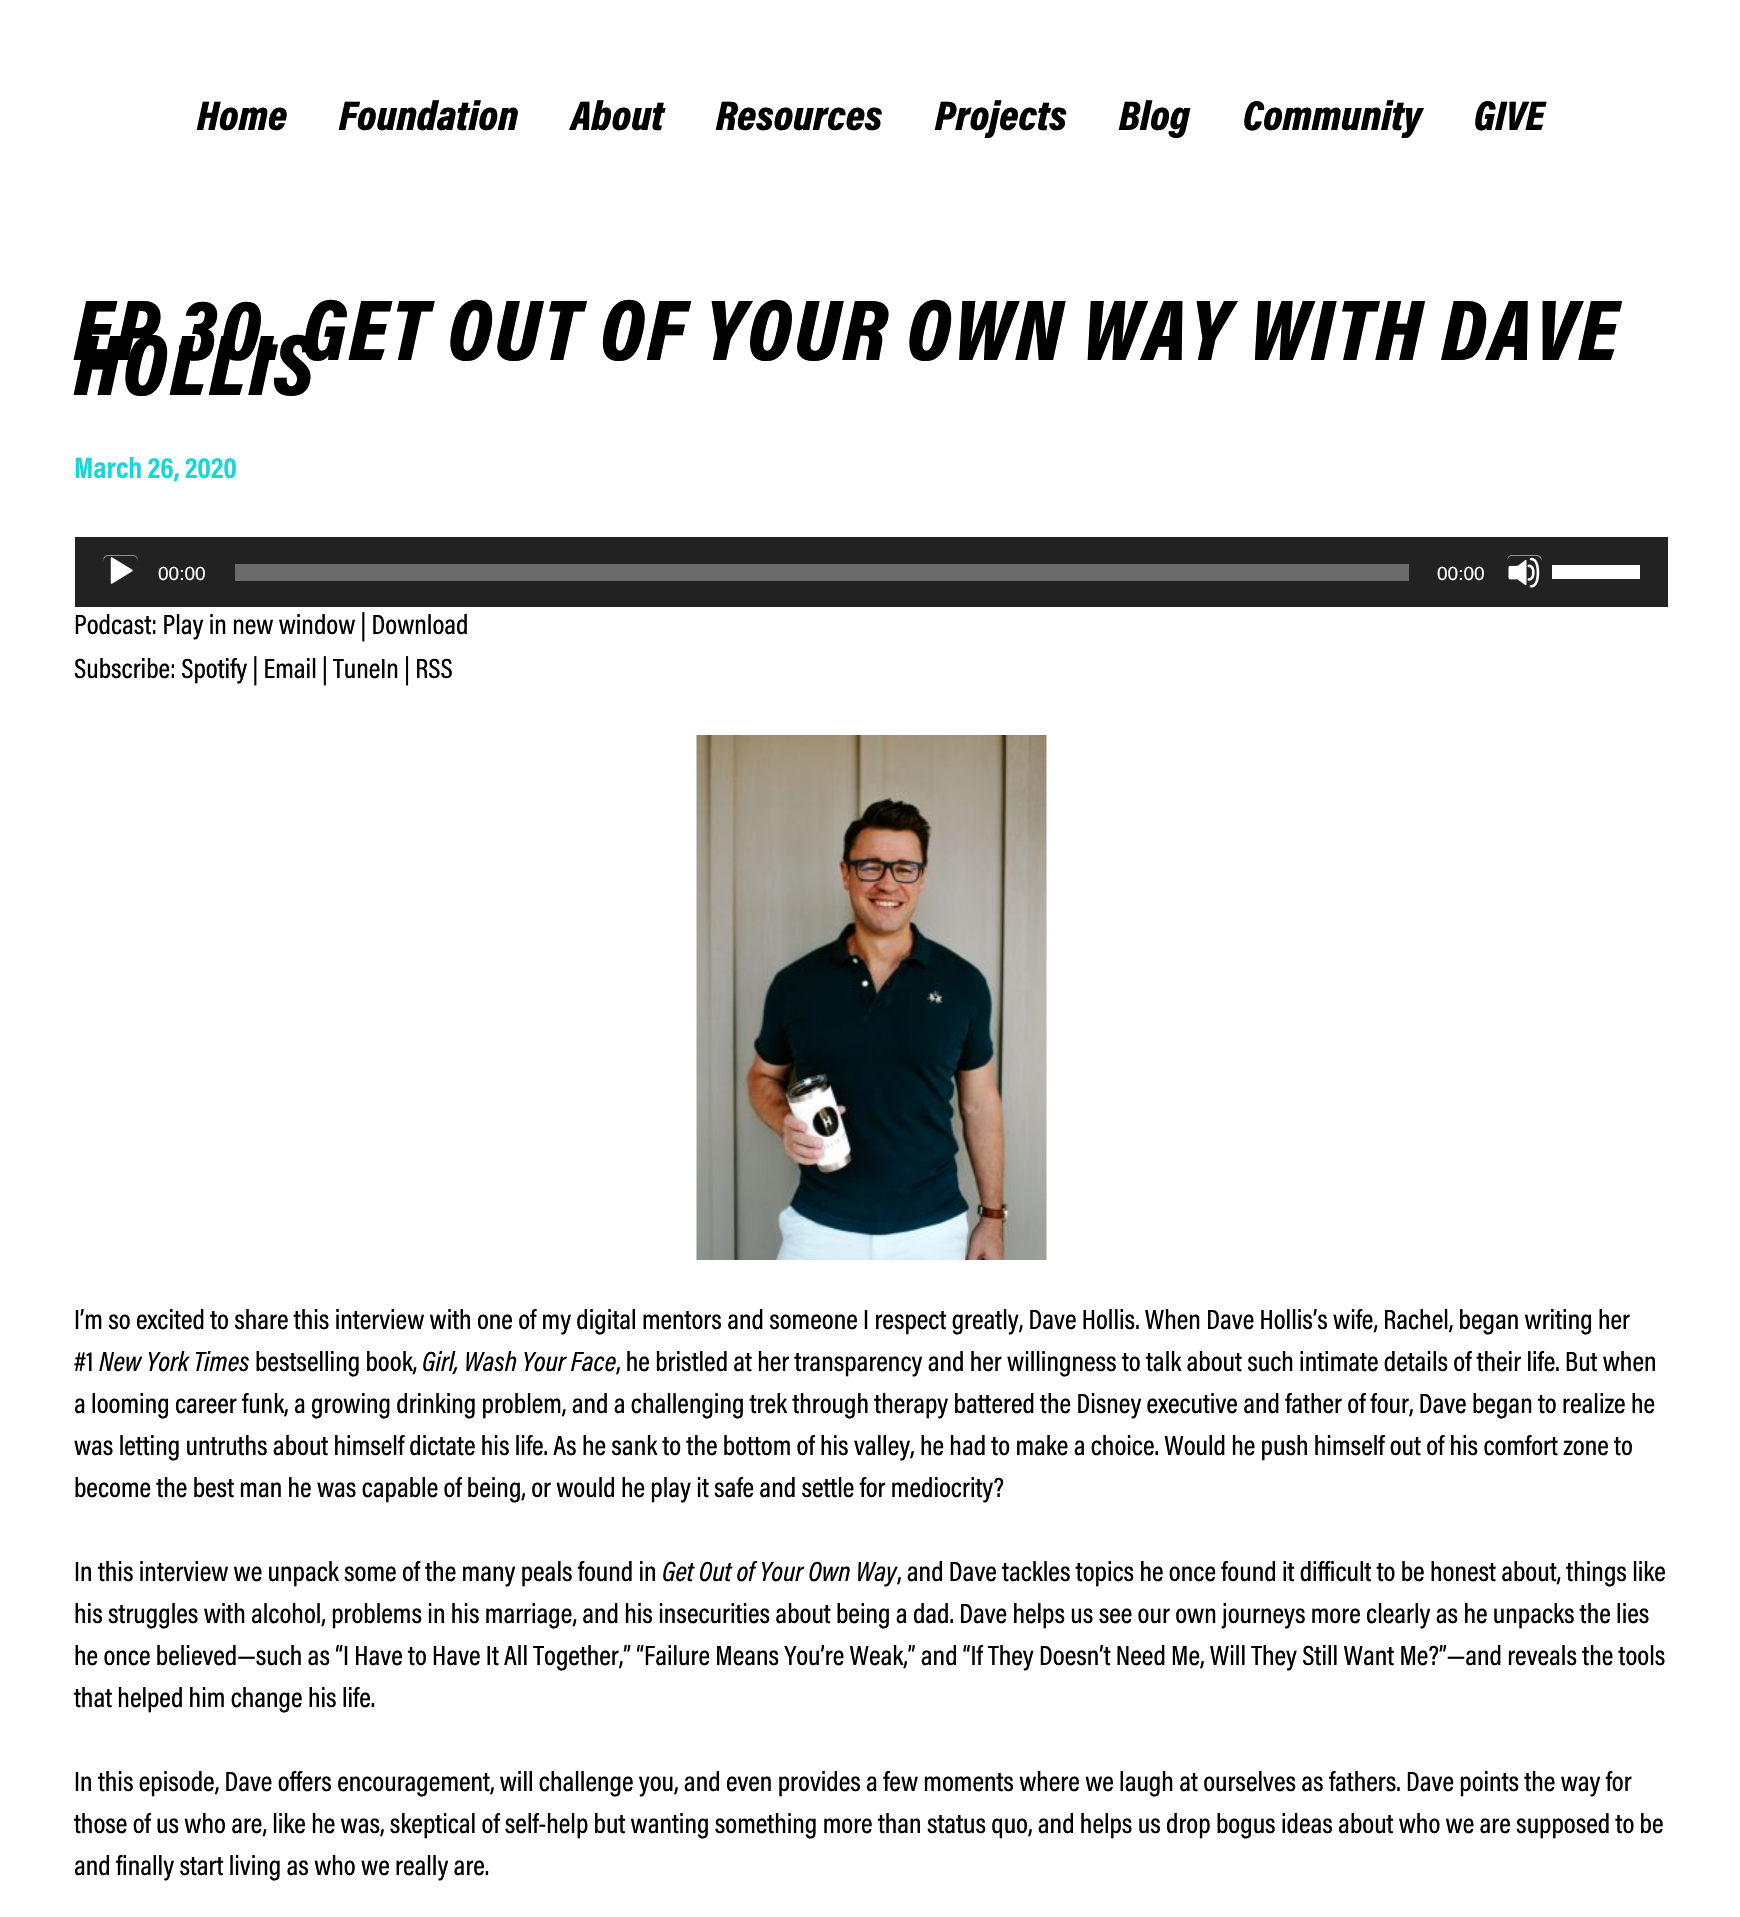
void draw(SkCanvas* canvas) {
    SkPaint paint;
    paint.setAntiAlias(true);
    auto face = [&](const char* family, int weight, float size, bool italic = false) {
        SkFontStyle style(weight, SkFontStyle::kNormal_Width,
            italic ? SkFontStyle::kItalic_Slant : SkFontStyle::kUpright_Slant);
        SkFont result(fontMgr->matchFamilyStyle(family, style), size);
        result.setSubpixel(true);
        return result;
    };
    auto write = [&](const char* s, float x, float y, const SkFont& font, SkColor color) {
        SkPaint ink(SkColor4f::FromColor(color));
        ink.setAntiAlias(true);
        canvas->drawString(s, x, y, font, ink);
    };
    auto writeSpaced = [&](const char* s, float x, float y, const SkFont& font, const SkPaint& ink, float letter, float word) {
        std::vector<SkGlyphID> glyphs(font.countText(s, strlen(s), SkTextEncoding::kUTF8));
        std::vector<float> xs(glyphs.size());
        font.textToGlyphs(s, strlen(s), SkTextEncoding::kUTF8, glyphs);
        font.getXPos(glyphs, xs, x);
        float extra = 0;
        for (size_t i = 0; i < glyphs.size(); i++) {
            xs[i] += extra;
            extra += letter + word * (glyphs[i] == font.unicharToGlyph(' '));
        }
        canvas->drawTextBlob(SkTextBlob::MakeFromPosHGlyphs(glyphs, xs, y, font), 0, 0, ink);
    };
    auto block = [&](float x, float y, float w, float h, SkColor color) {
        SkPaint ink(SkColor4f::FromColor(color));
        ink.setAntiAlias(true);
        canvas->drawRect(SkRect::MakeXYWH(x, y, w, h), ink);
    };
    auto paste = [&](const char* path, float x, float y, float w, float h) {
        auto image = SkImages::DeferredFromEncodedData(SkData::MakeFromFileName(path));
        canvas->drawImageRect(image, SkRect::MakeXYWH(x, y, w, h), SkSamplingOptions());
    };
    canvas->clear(SK_ColorWHITE);
    auto kFont1 = face("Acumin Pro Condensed", 900, 42, true);
    write("Home", 197, 130, kFont1, SK_ColorBLACK);
    write("Foundation", 339, 130, kFont1, SK_ColorBLACK);
    write("About", 571, 130, kFont1, SK_ColorBLACK);
    write("Resources", 716, 130, kFont1, SK_ColorBLACK);
    write("Projects", 935, 130, kFont1, SK_ColorBLACK);
    write("Blog", 1119, 130, kFont1, SK_ColorBLACK);
    write("Community", 1243, 130, kFont1, SK_ColorBLACK);
    write("GIVE", 1474, 130, kFont1, SK_ColorBLACK);
    auto kFont2 = face("Acumin Pro Condensed", 900, 87.5f, true);
    paint.setColor(SK_ColorBLACK);
    writeSpaced("EP 30. GET OUT OF YOUR OWN WAY WITH DAVE", 74, 360, kFont2, paint, 2.6f, 0);
    writeSpaced("HOLLIS", 74, 395, kFont2, paint, 2.6f, 0);
    auto kFont3 = face("Acumin Pro Condensed", 700, 29.75f);
    write("March 26, 2020", 74, 478, kFont3, SkColorSetRGB(19, 216, 216));
    block(75, 537, 1593, 70, SkColorSetRGB(34, 34, 34));
    paste("pic1.png", 110, 557, 23, 27);
    paint.setColor(SkColorSetRGB(145, 145, 145));
    canvas->drawPath(SkPathBuilder().moveTo(108, 556).lineTo(133, 556).cubicTo(136, 556, 138, 559, 138, 562).cubicTo(138, 555, 135, 555, 129, 555).lineTo(112, 555).cubicTo(106, 555, 103, 555, 103, 562).cubicTo(103, 559, 106, 556, 108, 556).close().detach(), paint);
    auto kFont4 = face("Liberation Sans", 400, 19);
    write("00:00", 158, 580, kFont4, SK_ColorWHITE);
    block(235, 564, 1174, 17, SkColorSetRGB(107, 107, 107));
    write("00:00", 1437, 580, kFont4, SK_ColorWHITE);
    paste("pic2.png", 1508, 557, 32, 31);
    canvas->drawPath(SkPathBuilder().moveTo(1512, 556).lineTo(1536, 556).cubicTo(1539, 556, 1542, 559, 1542, 562).cubicTo(1542, 555, 1539, 555, 1533, 555).lineTo(1516, 555).cubicTo(1510, 555, 1507, 555, 1507, 562).cubicTo(1507, 559, 1509, 556, 1512, 556).close().detach(), paint);
    block(1552, 565, 88, 14, SK_ColorWHITE);
    auto kFont5 = face("Acumin Pro Condensed", 500, 28);
    write("Podcast: Play in new window | Download", 74, 634, kFont5, SK_ColorBLACK);
    write("Subscribe: Spotify | Email | TuneIn | RSS", 74, 678, kFont5, SK_ColorBLACK);
    paste("pic3.png", 696, 735, 351, 525);
    write("I’m so excited to share this interview with one of my digital mentors and someone I respect greatly, Dave Hollis. When Dave Hollis’s wife, Rachel, began writing her", 74, 1329, kFont5, SK_ColorBLACK);
    write("#1", 74, 1371, kFont5, SK_ColorBLACK);
    auto kFont6 = face("Acumin Pro Condensed", 500, 28, true);
    write("New York Times", 99, 1371, kFont6, SK_ColorBLACK);
    write("bestselling book,", 255, 1371, kFont5, SK_ColorBLACK);
    write("Girl, Wash Your Face", 422, 1371, kFont6, SK_ColorBLACK);
    write(", he bristled at her transparency and her willingness to talk about such intimate details of their life. But when", 616, 1371, kFont5, SK_ColorBLACK);
    write("a looming career funk, a growing drinking problem, and a challenging trek through therapy battered the Disney executive and father of four, Dave began to realize he", 74, 1413, kFont5, SK_ColorBLACK);
    write("was letting untruths about himself dictate his life. As he sank to the bottom of his valley, he had to make a choice. Would he push himself out of his comfort zone to", 74, 1455, kFont5, SK_ColorBLACK);
    write("become the best man he was capable of being, or would he play it safe and settle for mediocrity?", 74, 1497, kFont5, SK_ColorBLACK);
    write("In this interview we unpack some of the many peals found in", 74, 1581, kFont5, SK_ColorBLACK);
    write("Get Out of Your Own Way", 662, 1581, kFont6, SK_ColorBLACK);
    write(", and Dave tackles topics he once found it difficult to be honest about, things like", 897, 1581, kFont5, SK_ColorBLACK);
    write("his struggles with alcohol, problems in his marriage, and his insecurities about being a dad. Dave helps us see our own journeys more clearly as he unpacks the lies", 74, 1623, kFont5, SK_ColorBLACK);
    write("he once believed—such as “I Have to Have It All Together,” “Failure Means You’re Weak,” and “If They Doesn’t Need Me, Will They Still Want Me?”—and reveals the tools", 74, 1665, kFont5, SK_ColorBLACK);
    write("that helped him change his life.", 74, 1707, kFont5, SK_ColorBLACK);
    write("In this episode, Dave offers encouragement, will challenge you, and even provides a few moments where we laugh at ourselves as fathers. Dave points the way for", 74, 1791, kFont5, SK_ColorBLACK);
    write("those of us who are, like he was, skeptical of self-help but wanting something more than status quo, and helps us drop bogus ideas about who we are supposed to be", 74, 1833, kFont5, SK_ColorBLACK);
    write("and finally start living as who we really are.", 74, 1875, kFont5, SK_ColorBLACK);
}
